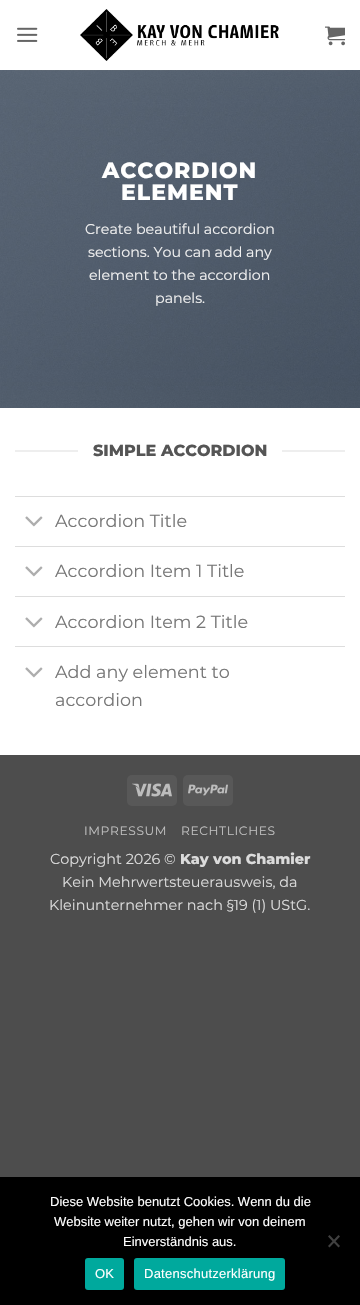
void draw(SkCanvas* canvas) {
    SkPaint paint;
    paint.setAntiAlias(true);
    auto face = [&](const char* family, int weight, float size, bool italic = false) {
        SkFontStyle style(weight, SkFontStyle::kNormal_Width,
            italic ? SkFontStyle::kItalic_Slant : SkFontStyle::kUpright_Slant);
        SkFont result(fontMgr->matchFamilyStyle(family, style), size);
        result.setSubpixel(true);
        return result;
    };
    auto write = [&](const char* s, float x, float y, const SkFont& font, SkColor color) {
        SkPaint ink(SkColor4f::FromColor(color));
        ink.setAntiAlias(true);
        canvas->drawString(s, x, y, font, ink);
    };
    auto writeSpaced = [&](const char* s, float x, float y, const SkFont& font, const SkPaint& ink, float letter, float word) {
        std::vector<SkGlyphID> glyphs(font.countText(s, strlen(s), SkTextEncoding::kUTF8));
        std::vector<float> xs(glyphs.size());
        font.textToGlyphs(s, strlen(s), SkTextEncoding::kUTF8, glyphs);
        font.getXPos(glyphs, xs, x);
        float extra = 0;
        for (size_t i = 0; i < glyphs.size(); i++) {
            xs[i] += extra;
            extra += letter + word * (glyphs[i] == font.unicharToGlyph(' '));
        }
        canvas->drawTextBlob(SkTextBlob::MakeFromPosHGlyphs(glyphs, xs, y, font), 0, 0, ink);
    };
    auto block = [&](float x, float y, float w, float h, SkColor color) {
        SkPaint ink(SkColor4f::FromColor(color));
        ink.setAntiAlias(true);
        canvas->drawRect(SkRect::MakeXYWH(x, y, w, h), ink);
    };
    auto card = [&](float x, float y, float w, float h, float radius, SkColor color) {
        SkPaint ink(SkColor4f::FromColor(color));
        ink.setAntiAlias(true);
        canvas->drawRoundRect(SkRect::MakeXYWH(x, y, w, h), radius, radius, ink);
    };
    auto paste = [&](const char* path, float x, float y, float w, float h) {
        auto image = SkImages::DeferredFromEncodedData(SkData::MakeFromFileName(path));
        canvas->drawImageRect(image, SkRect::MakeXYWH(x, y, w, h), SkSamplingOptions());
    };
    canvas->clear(SkColorSetRGB(77, 77, 77));
    block(0, 0, 360, 755, SK_ColorWHITE);
    paste("pic1.png", 17, 27, 21, 15);
    paste("pic2.png", 80, 9, 199, 52);
    paste("pic3.png", 325, 26, 20, 20);
    paste("pic4.png", 0, 70, 360, 338);
    block(15, 70, 330, 1, SkColorSetARGB(26, 119, 119, 119));
    auto kFont1 = face("Montserrat", 800, 22);
    paint.setColor(SK_ColorWHITE);
    writeSpaced("ACCORDION", 102, 178, kFont1, paint, 1, 0);
    writeSpaced("ELEMENT", 121, 200, kFont1, paint, 1, 0);
    auto kFont2 = face("Montserrat", 400, 14.25f);
    write("Create beautiful accordion", 85, 234, kFont2, SkColorSetRGB(241, 241, 241));
    write("sections. You can add any", 88, 257, kFont2, SkColorSetRGB(241, 241, 241));
    write("element to the accordion", 89, 280, kFont2, SkColorSetRGB(241, 241, 241));
    write("panels.", 155, 303, kFont2, SkColorSetRGB(241, 241, 241));
    block(15, 450, 63, 2, SkColorSetRGB(238, 238, 238));
    auto kFont3 = face("Montserrat", 800, 16);
    write("SIMPLE ACCORDION", 93, 456, kFont3, SkColorSetRGB(85, 85, 85));
    block(282, 450, 63, 2, SkColorSetRGB(238, 238, 238));
    block(15, 496, 330, 1, SkColorSetRGB(221, 221, 221));
    paste("pic5.png", 25, 516, 18, 11);
    auto kFont4 = face("Montserrat", 400, 17.6f);
    write("Accordion Title", 55, 527, kFont4, SkColorSetRGB(119, 119, 119));
    block(15, 546, 330, 1, SkColorSetRGB(221, 221, 221));
    paste("pic5.png", 25, 566, 18, 11);
    write("Accordion Item 1 Title", 55, 577, kFont4, SkColorSetRGB(119, 119, 119));
    block(15, 596, 330, 1, SkColorSetRGB(221, 221, 221));
    paste("pic5.png", 25, 617, 18, 11);
    write("Accordion Item 2 Title", 55, 628, kFont4, SkColorSetRGB(119, 119, 119));
    block(15, 646, 330, 1, SkColorSetRGB(221, 221, 221));
    paste("pic5.png", 25, 667, 18, 11);
    write("Add any element to", 55, 678, kFont4, SkColorSetRGB(119, 119, 119));
    write("accordion", 55, 706, kFont4, SkColorSetRGB(119, 119, 119));
    card(127, 775, 50, 31, 5, SkColorSetRGB(88, 88, 88));
    paste("pic6.png", 132, 783, 40, 14);
    card(183, 775, 50, 31, 5, SkColorSetRGB(88, 88, 88));
    paste("pic7.png", 188, 784, 40, 12);
    auto kFont5 = face("Montserrat", 400, 12.25f);
    paint.setColor(SkColorSetRGB(191, 191, 191));
    writeSpaced("IMPRESSUM", 84, 835, kFont5, paint, 0.6f, 0);
    writeSpaced("RECHTLICHES", 181, 835, kFont5, paint, 0.6f, 0);
    auto kFont6 = face("Montserrat", 400, 14.4f);
    write("Copyright 2026 ©", 50, 864, kFont6, SkColorSetRGB(219, 219, 219));
    auto kFont7 = face("Montserrat", 800, 14.4f);
    write("Kay von Chamier", 180, 864, kFont7, SkColorSetRGB(219, 219, 219));
    write("Kein Mehrwertsteuerausweis, da", 62, 887, kFont6, SkColorSetRGB(219, 219, 219));
    write("Kleinunternehmer nach §19 (1) UStG.", 49, 910, kFont6, SkColorSetRGB(219, 219, 219));
    block(0, 1177, 360, 128, SK_ColorBLACK);
    auto kFont8 = face("Liberation Sans", 400, 13);
    write("Diese Website benutzt Cookies. Wenn du die", 50, 1206, kFont8, SK_ColorWHITE);
    write("Website weiter nutzt, gehen wir von deinem", 54, 1226, kFont8, SK_ColorWHITE);
    write("Einverständnis aus.", 123, 1246, kFont8, SK_ColorWHITE);
    paint.setColor(SkColorSetRGB(64, 64, 64));
    canvas->drawPath(SkPathBuilder().moveTo(338.5f, 1235).lineTo(340, 1236.5f).lineTo(329.5f, 1247.5f).lineTo(328, 1246).close().detach(), paint);
    canvas->drawPath(SkPathBuilder().moveTo(328, 1236.5f).lineTo(329.5f, 1235).lineTo(340, 1246).lineTo(338.5f, 1247.5f).close().detach(), paint);
    card(85, 1258, 39, 32, 3, SkColorSetRGB(0, 169, 157));
    paint.setColor(SK_ColorWHITE);
    writeSpaced("OK", 95, 1278, kFont8, paint, 0.25f, 0);
    card(134, 1258, 151, 32, 3, SkColorSetRGB(0, 169, 157));
    writeSpaced("Datenschutzerklärung", 144, 1278, kFont8, paint, 0.25f, 0);
}
